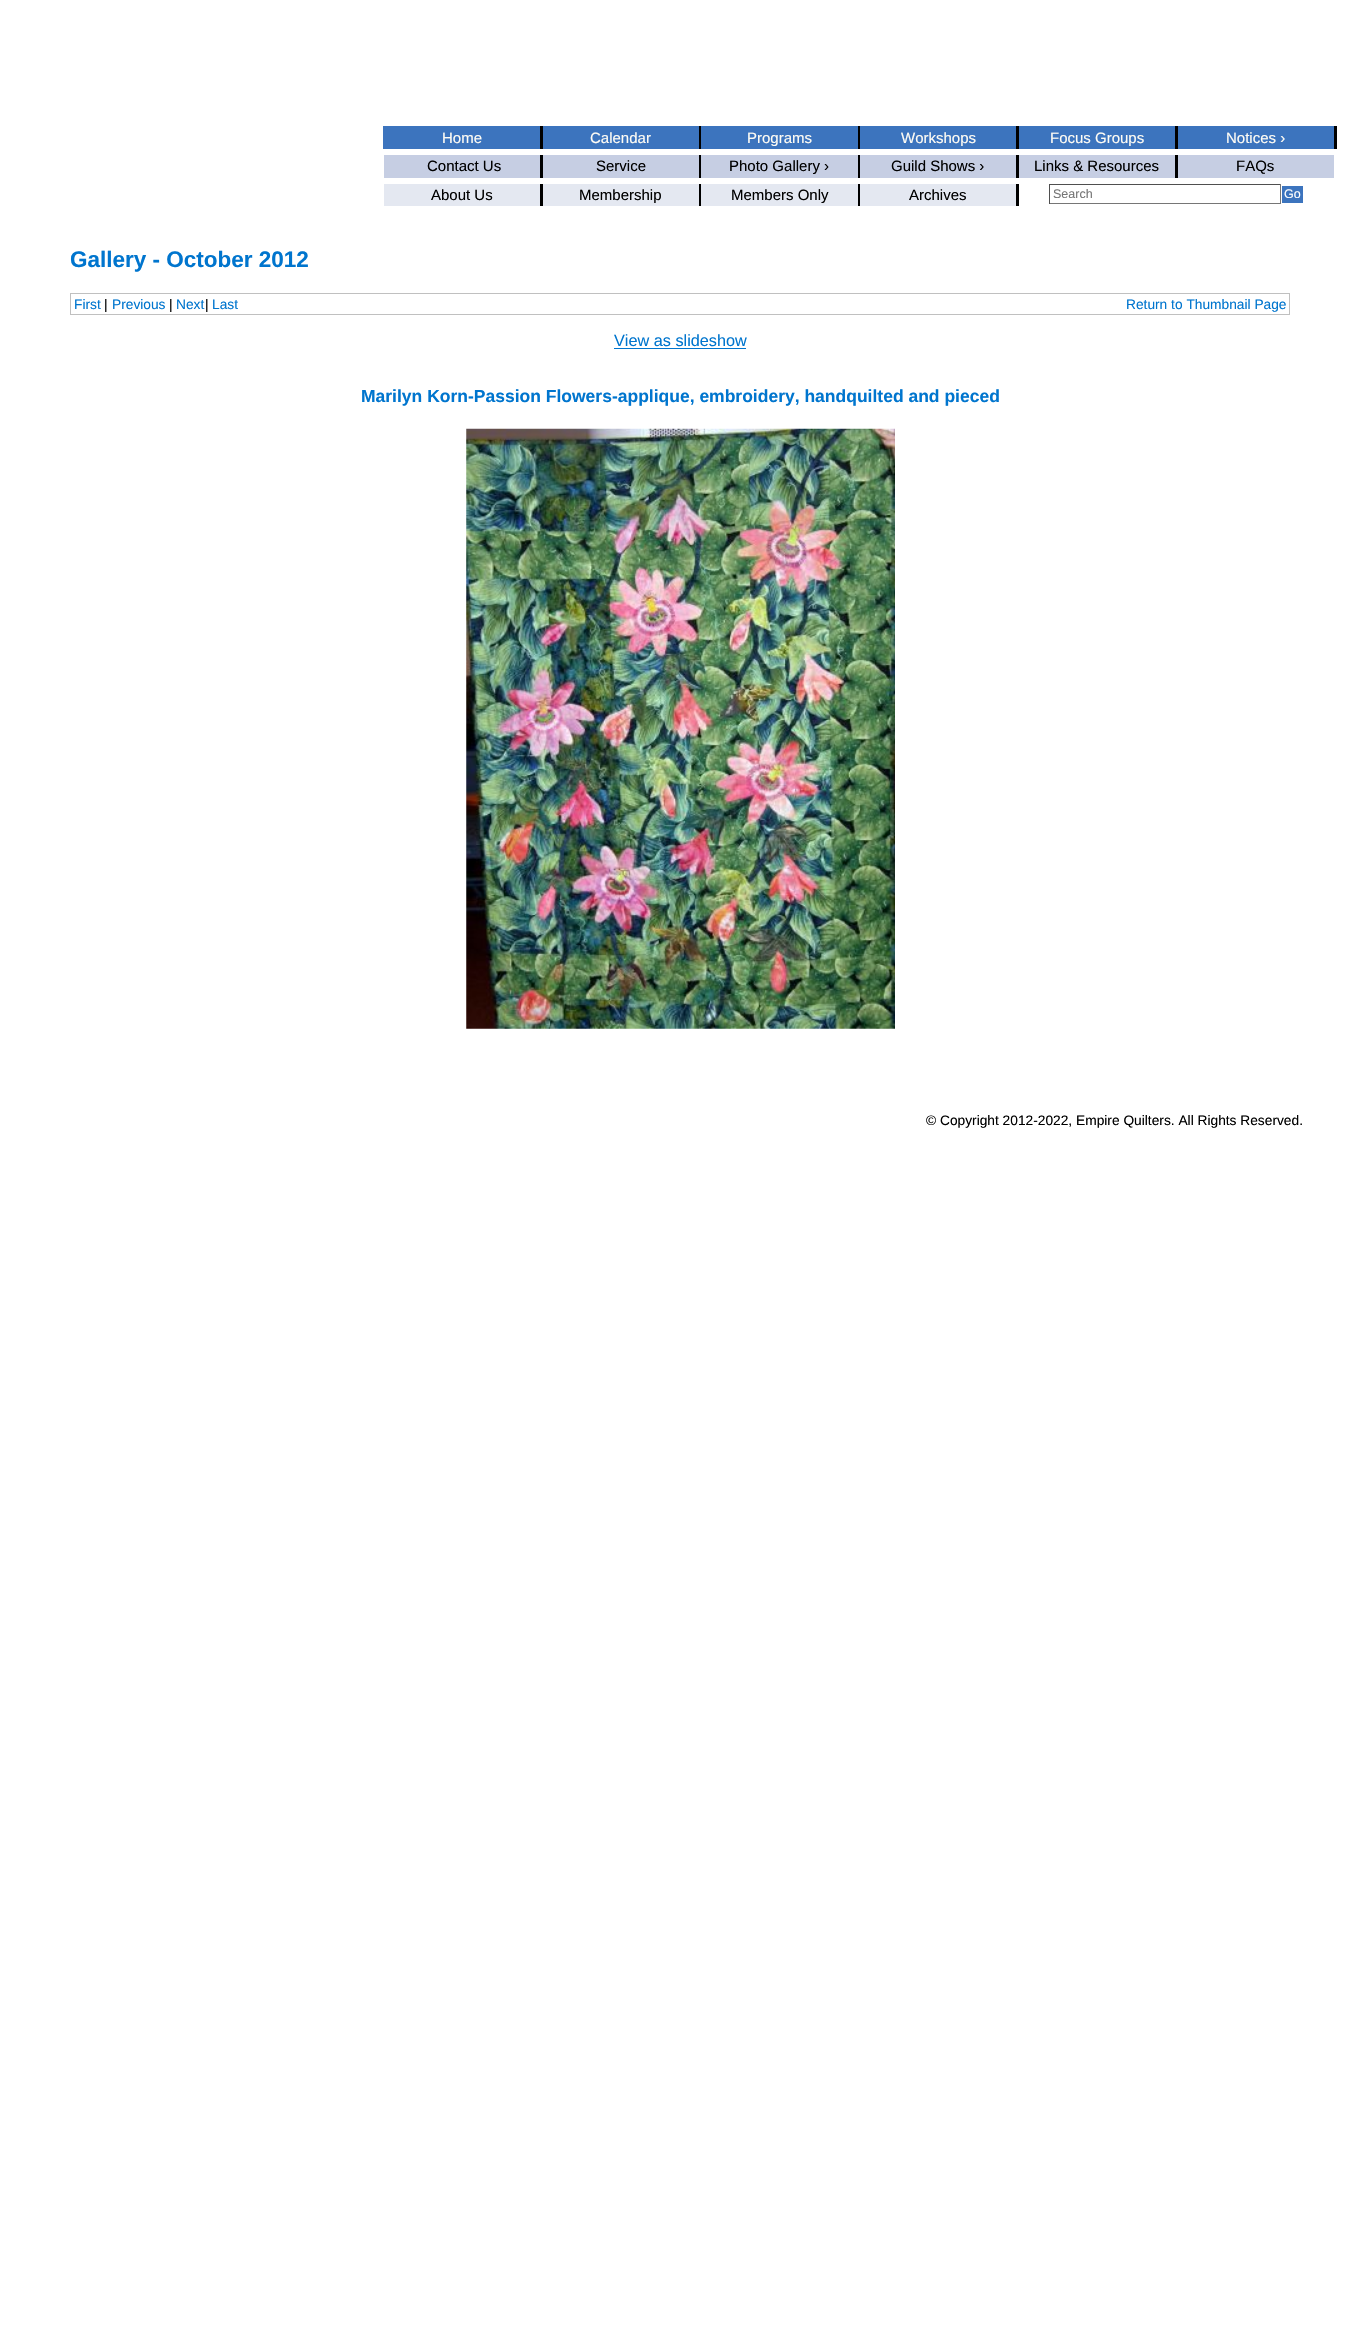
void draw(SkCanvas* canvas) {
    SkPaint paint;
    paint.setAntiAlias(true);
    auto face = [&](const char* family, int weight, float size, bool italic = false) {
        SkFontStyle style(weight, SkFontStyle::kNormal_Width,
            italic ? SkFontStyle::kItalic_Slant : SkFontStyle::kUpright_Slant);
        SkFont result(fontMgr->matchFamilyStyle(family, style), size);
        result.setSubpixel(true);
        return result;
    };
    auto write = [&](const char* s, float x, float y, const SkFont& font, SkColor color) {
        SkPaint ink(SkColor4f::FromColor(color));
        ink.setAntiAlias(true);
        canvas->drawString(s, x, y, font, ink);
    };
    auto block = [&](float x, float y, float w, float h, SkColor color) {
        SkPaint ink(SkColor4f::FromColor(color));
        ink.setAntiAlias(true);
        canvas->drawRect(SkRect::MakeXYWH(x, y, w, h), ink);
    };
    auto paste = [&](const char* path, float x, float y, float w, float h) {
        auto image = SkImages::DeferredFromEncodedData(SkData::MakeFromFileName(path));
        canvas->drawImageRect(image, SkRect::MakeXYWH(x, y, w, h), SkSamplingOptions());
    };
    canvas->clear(SK_ColorWHITE);
    block(383, 126, 157, 23, SkColorSetRGB(60, 116, 190));
    block(540, 126, 3, 23, SK_ColorBLACK);
    auto kFont1 = face("Liberation Sans", 400, 15);
    write("Home", 442, 143, kFont1, SkColorSetRGB(254, 252, 245));
    block(543, 126, 156, 23, SkColorSetRGB(60, 116, 190));
    block(699, 126, 2, 23, SK_ColorBLACK);
    write("Calendar", 590, 143, kFont1, SkColorSetRGB(254, 252, 245));
    block(701, 126, 157, 23, SkColorSetRGB(60, 116, 190));
    block(858, 126, 2, 23, SK_ColorBLACK);
    write("Programs", 747, 143, kFont1, SkColorSetRGB(254, 252, 245));
    block(860, 126, 156, 23, SkColorSetRGB(60, 116, 190));
    block(1016, 126, 3, 23, SK_ColorBLACK);
    write("Workshops", 901, 143, kFont1, SkColorSetRGB(254, 252, 245));
    block(1019, 126, 156, 23, SkColorSetRGB(60, 116, 190));
    block(1175, 126, 3, 23, SK_ColorBLACK);
    write("Focus Groups", 1050, 143, kFont1, SkColorSetRGB(254, 252, 245));
    block(1178, 126, 156, 23, SkColorSetRGB(60, 116, 190));
    block(1334, 126, 3, 23, SK_ColorBLACK);
    write("Notices ›", 1226, 143, kFont1, SkColorSetRGB(254, 252, 245));
    block(384, 155, 156, 23, SkColorSetRGB(198, 206, 227));
    block(540, 155, 3, 23, SK_ColorBLACK);
    write("Contact Us", 427, 171, kFont1, SK_ColorBLACK);
    block(543, 155, 156, 23, SkColorSetRGB(198, 206, 227));
    block(699, 155, 2, 23, SK_ColorBLACK);
    write("Service", 596, 171, kFont1, SK_ColorBLACK);
    block(701, 155, 157, 23, SkColorSetRGB(198, 206, 227));
    block(858, 155, 2, 23, SK_ColorBLACK);
    write("Photo Gallery ›", 729, 171, kFont1, SK_ColorBLACK);
    block(860, 155, 156, 23, SkColorSetRGB(198, 206, 227));
    block(1016, 155, 3, 23, SK_ColorBLACK);
    write("Guild Shows ›", 891, 171, kFont1, SK_ColorBLACK);
    block(1019, 155, 156, 23, SkColorSetRGB(198, 206, 227));
    block(1175, 155, 3, 23, SK_ColorBLACK);
    write("Links & Resources", 1034, 171, kFont1, SK_ColorBLACK);
    block(1178, 155, 156, 23, SkColorSetRGB(198, 206, 227));
    write("FAQs", 1236, 171, kFont1, SK_ColorBLACK);
    block(384, 184, 156, 22, SkColorSetRGB(228, 232, 241));
    block(540, 184, 3, 22, SK_ColorBLACK);
    write("About Us", 431, 200, kFont1, SK_ColorBLACK);
    block(543, 184, 156, 22, SkColorSetRGB(228, 232, 241));
    block(699, 184, 2, 22, SK_ColorBLACK);
    write("Membership", 579, 200, kFont1, SK_ColorBLACK);
    block(701, 184, 157, 22, SkColorSetRGB(228, 232, 241));
    block(858, 184, 2, 22, SK_ColorBLACK);
    write("Members Only", 731, 200, kFont1, SK_ColorBLACK);
    block(860, 184, 156, 22, SkColorSetRGB(228, 232, 241));
    block(1016, 184, 3, 22, SK_ColorBLACK);
    write("Archives", 909, 200, kFont1, SK_ColorBLACK);
    block(1049, 184, 232, 1, SkColorSetRGB(79, 79, 79));
    block(1280, 184, 1, 20, SkColorSetRGB(118, 118, 118));
    block(1049, 203, 232, 1, SkColorSetRGB(118, 118, 118));
    block(1049, 184, 1, 20, SkColorSetRGB(79, 79, 79));
    auto kFont2 = face("Liberation Sans", 400, 12.5f);
    write("Search", 1053, 198, kFont2, SkColorSetRGB(117, 117, 117));
    block(1282, 186, 21, 17, SkColorSetRGB(60, 116, 190));
    write("Go", 1284, 198, kFont2, SK_ColorWHITE);
    auto kFont3 = face("Liberation Sans", 700, 22.5f);
    write("Gallery - October 2012", 70, 267, kFont3, SkColorSetRGB(0, 117, 206));
    paint.setStyle(SkPaint::kStroke_Style);
    paint.setStrokeWidth(1);
    paint.setColor(SkColorSetRGB(192, 192, 192));
    canvas->drawRect(SkRect::MakeXYWH(70.5f, 293.5f, 1219, 21), paint);
    auto kFont4 = face("Liberation Sans", 400, 13.75f);
    write("First", 74, 309, kFont4, SkColorSetRGB(0, 117, 206));
    write("|", 104, 309, kFont4, SK_ColorBLACK);
    write("Previous", 112, 309, kFont4, SkColorSetRGB(0, 117, 206));
    write("|", 169, 309, kFont4, SK_ColorBLACK);
    write("Next", 176, 309, kFont4, SkColorSetRGB(0, 117, 206));
    write("|", 205, 309, kFont4, SK_ColorBLACK);
    write("Last", 212, 309, kFont4, SkColorSetRGB(0, 117, 206));
    write("Return to Thumbnail Page", 1126, 309, kFont4, SkColorSetRGB(0, 117, 206));
    auto kFont5 = face("Liberation Sans", 400, 16.25f);
    write("View as slideshow", 614, 346, kFont5, SkColorSetRGB(0, 117, 206));
    block(614, 348, 132, 1, SkColorSetRGB(0, 117, 206));
    auto kFont6 = face("Liberation Sans", 700, 17.5f);
    write("Marilyn Korn-Passion Flowers-applique, embroidery, handquilted and pieced", 361, 402, kFont6, SkColorSetRGB(0, 117, 206));
    paste("pic1.png", 466, 428, 429, 601);
    write("© Copyright 2012-2022, Empire Quilters. All Rights Reserved.", 926, 1125, kFont4, SK_ColorBLACK);
}
